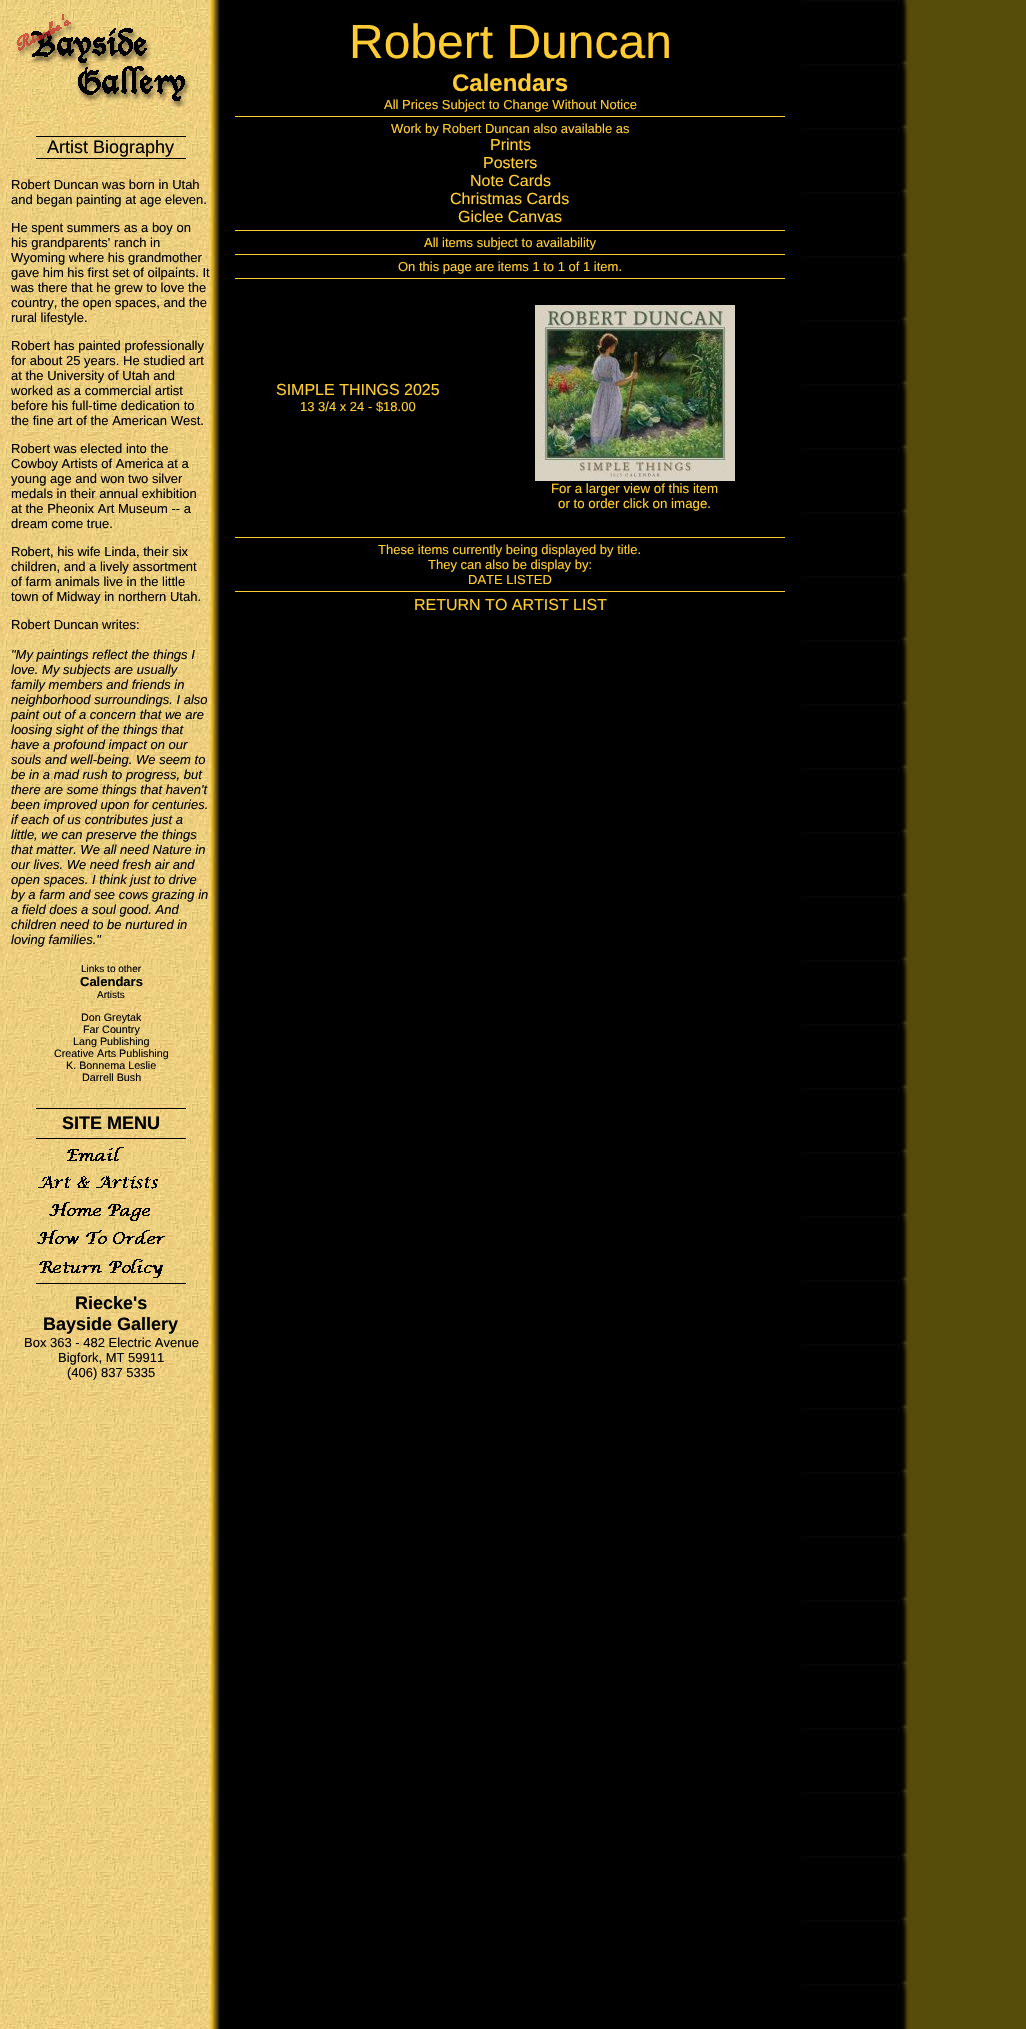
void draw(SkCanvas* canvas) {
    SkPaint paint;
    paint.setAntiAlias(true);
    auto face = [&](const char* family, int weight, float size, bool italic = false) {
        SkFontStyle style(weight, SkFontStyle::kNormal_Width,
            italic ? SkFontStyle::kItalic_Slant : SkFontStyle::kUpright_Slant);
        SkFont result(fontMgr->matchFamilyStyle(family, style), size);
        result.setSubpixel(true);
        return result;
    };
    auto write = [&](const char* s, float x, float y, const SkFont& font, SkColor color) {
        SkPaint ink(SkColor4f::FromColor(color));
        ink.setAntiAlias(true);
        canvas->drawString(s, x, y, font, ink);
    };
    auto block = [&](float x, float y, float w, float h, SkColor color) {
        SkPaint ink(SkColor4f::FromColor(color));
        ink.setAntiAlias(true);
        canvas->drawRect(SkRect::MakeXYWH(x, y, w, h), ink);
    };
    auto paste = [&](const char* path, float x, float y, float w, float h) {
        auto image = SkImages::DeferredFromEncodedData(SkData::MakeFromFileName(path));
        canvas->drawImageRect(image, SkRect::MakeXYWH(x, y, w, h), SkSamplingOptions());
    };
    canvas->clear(SK_ColorWHITE);
    paste("pic1.png", 0, 0, 1026, 2029);
    paste("pic2.png", 11, 11, 182, 125);
    block(36, 136, 150, 1, SK_ColorBLACK);
    auto kFont1 = face("Liberation Sans", 400, 18);
    write("Artist Biography", 47, 153, kFont1, SK_ColorBLACK);
    block(36, 158, 150, 1, SK_ColorBLACK);
    auto kFont2 = face("Liberation Sans", 400, 13);
    write("Robert Duncan was born in Utah", 11, 189, kFont2, SK_ColorBLACK);
    write("and began painting at age eleven.", 11, 204, kFont2, SK_ColorBLACK);
    write("He spent summers as a boy on", 11, 232, kFont2, SK_ColorBLACK);
    write("his grandparents' ranch in", 11, 247, kFont2, SK_ColorBLACK);
    write("Wyoming where his grandmother", 11, 262, kFont2, SK_ColorBLACK);
    write("gave him his first set of oilpaints. It", 11, 277, kFont2, SK_ColorBLACK);
    write("was there that he grew to love the", 11, 292, kFont2, SK_ColorBLACK);
    write("country, the open spaces, and the", 11, 307, kFont2, SK_ColorBLACK);
    write("rural lifestyle.", 11, 322, kFont2, SK_ColorBLACK);
    write("Robert has painted professionally", 11, 350, kFont2, SK_ColorBLACK);
    write("for about 25 years. He studied art", 11, 365, kFont2, SK_ColorBLACK);
    write("at the University of Utah and", 11, 380, kFont2, SK_ColorBLACK);
    write("worked as a commercial artist", 11, 395, kFont2, SK_ColorBLACK);
    write("before his full-time dedication to", 11, 410, kFont2, SK_ColorBLACK);
    write("the fine art of the American West.", 11, 425, kFont2, SK_ColorBLACK);
    write("Robert was elected into the", 11, 453, kFont2, SK_ColorBLACK);
    write("Cowboy Artists of America at a", 11, 468, kFont2, SK_ColorBLACK);
    write("young age and won two silver", 11, 483, kFont2, SK_ColorBLACK);
    write("medals in their annual exhibition", 11, 498, kFont2, SK_ColorBLACK);
    write("at the Pheonix Art Museum -- a", 11, 513, kFont2, SK_ColorBLACK);
    write("dream come true.", 11, 528, kFont2, SK_ColorBLACK);
    write("Robert, his wife Linda, their six", 11, 556, kFont2, SK_ColorBLACK);
    write("children, and a lively assortment", 11, 571, kFont2, SK_ColorBLACK);
    write("of farm animals live in the little", 11, 586, kFont2, SK_ColorBLACK);
    write("town of Midway in northern Utah.", 11, 601, kFont2, SK_ColorBLACK);
    write("Robert Duncan writes:", 11, 629, kFont2, SK_ColorBLACK);
    auto kFont3 = face("Liberation Sans", 400, 13, true);
    write("\"My paintings reflect the things I", 11, 659, kFont3, SK_ColorBLACK);
    write("love. My subjects are usually", 11, 674, kFont3, SK_ColorBLACK);
    write("family members and friends in", 11, 689, kFont3, SK_ColorBLACK);
    write("neighborhood surroundings. I also", 11, 704, kFont3, SK_ColorBLACK);
    write("paint out of a concern that we are", 11, 719, kFont3, SK_ColorBLACK);
    write("loosing sight of the things that", 11, 734, kFont3, SK_ColorBLACK);
    write("have a profound impact on our", 11, 749, kFont3, SK_ColorBLACK);
    write("souls and well-being. We seem to", 11, 764, kFont3, SK_ColorBLACK);
    write("be in a mad rush to progress, but", 11, 779, kFont3, SK_ColorBLACK);
    write("there are some things that haven't", 11, 794, kFont3, SK_ColorBLACK);
    write("been improved upon for centuries.", 11, 809, kFont3, SK_ColorBLACK);
    write("if each of us contributes just a", 11, 824, kFont3, SK_ColorBLACK);
    write("little, we can preserve the things", 11, 839, kFont3, SK_ColorBLACK);
    write("that matter. We all need Nature in", 11, 854, kFont3, SK_ColorBLACK);
    write("our lives. We need fresh air and", 11, 869, kFont3, SK_ColorBLACK);
    write("open spaces. I think just to drive", 11, 884, kFont3, SK_ColorBLACK);
    write("by a farm and see cows grazing in", 11, 899, kFont3, SK_ColorBLACK);
    write("a field does a soul good. And", 11, 914, kFont3, SK_ColorBLACK);
    write("children need to be nurtured in", 11, 929, kFont3, SK_ColorBLACK);
    write("loving families.\"", 11, 944, kFont3, SK_ColorBLACK);
    auto kFont4 = face("Liberation Sans", 400, 10);
    write("Links to other", 81, 972, kFont4, SK_ColorBLACK);
    auto kFont5 = face("Liberation Sans", 700, 13);
    write("Calendars", 80, 986, kFont5, SK_ColorBLACK);
    write("Artists", 97, 998, kFont4, SK_ColorBLACK);
    auto kFont6 = face("Liberation Sans", 400, 10.75f);
    write("Don Greytak", 81, 1021, kFont6, SK_ColorBLACK);
    write("Far Country", 83, 1033, kFont6, SK_ColorBLACK);
    write("Lang Publishing", 73, 1045, kFont6, SK_ColorBLACK);
    write("Creative Arts Publishing", 54, 1057, kFont6, SK_ColorBLACK);
    write("K. Bonnema Leslie", 66, 1069, kFont6, SK_ColorBLACK);
    write("Darrell Bush", 82, 1081, kFont6, SK_ColorBLACK);
    block(36, 1108, 150, 1, SK_ColorBLACK);
    auto kFont7 = face("Liberation Sans", 700, 18);
    write("SITE MENU", 62, 1129, kFont7, SK_ColorBLACK);
    block(36, 1138, 150, 1, SK_ColorBLACK);
    paste("pic3.png", 67, 1147, 57, 14);
    paste("pic4.png", 38, 1176, 120, 13);
    paste("pic5.png", 49, 1202, 101, 19);
    paste("pic6.png", 37, 1230, 128, 14);
    paste("pic7.png", 39, 1259, 124, 19);
    block(36, 1283, 150, 1, SK_ColorBLACK);
    write("Riecke's", 75, 1309, kFont7, SK_ColorBLACK);
    write("Bayside Gallery", 43, 1330, kFont7, SK_ColorBLACK);
    write("Box 363 - 482 Electric Avenue", 24, 1347, kFont2, SK_ColorBLACK);
    write("Bigfork, MT 59911", 58, 1362, kFont2, SK_ColorBLACK);
    write("(406) 837 5335", 67, 1377, kFont2, SK_ColorBLACK);
    auto kFont8 = face("Liberation Sans", 400, 48);
    write("Robert Duncan", 349, 58, kFont8, SkColorSetRGB(255, 204, 51));
    auto kFont9 = face("Liberation Sans", 700, 24);
    write("Calendars", 452, 91, kFont9, SkColorSetRGB(255, 204, 51));
    write("All Prices Subject to Change Without Notice", 384, 109, kFont2, SkColorSetRGB(255, 204, 51));
    block(235, 116, 550, 1, SkColorSetRGB(255, 204, 51));
    write("Work by Robert Duncan also available as", 391, 133, kFont2, SkColorSetRGB(255, 204, 51));
    auto kFont10 = face("Liberation Sans", 400, 16);
    write("Prints", 490, 150, kFont10, SkColorSetRGB(255, 204, 51));
    write("Posters", 483, 168, kFont10, SkColorSetRGB(255, 204, 51));
    write("Note Cards", 470, 186, kFont10, SkColorSetRGB(255, 204, 51));
    write("Christmas Cards", 450, 204, kFont10, SkColorSetRGB(255, 204, 51));
    write("Giclee Canvas", 458, 222, kFont10, SkColorSetRGB(255, 204, 51));
    block(235, 230, 550, 1, SkColorSetRGB(255, 204, 51));
    write("All items subject to availability", 424, 247, kFont2, SkColorSetRGB(255, 204, 51));
    block(235, 254, 550, 1, SkColorSetRGB(255, 204, 51));
    write("On this page are items 1 to 1 of 1 item.", 398, 271, kFont2, SkColorSetRGB(255, 204, 51));
    block(235, 278, 550, 1, SkColorSetRGB(255, 204, 51));
    write("SIMPLE THINGS 2025", 276, 395, kFont10, SkColorSetRGB(255, 204, 51));
    write("13 3/4 x 24 - $18.00", 300, 411, kFont2, SkColorSetRGB(255, 204, 51));
    paste("pic8.png", 535, 305, 200, 176);
    auto kFont11 = face("Liberation Sans", 400, 13.3f);
    write("For a larger view of this item", 551, 493, kFont11, SkColorSetRGB(255, 204, 51));
    write("or to order click on image.", 558, 508, kFont11, SkColorSetRGB(255, 204, 51));
    block(235, 537, 550, 1, SkColorSetRGB(255, 204, 51));
    write("These items currently being displayed by title.", 378, 554, kFont2, SkColorSetRGB(255, 204, 51));
    write("They can also be display by:", 428, 569, kFont2, SkColorSetRGB(255, 204, 51));
    write("DATE LISTED", 468, 584, kFont2, SkColorSetRGB(255, 204, 51));
    block(235, 591, 550, 1, SkColorSetRGB(255, 204, 51));
    write("RETURN TO ARTIST LIST", 414, 610, kFont10, SkColorSetRGB(255, 204, 51));
}
